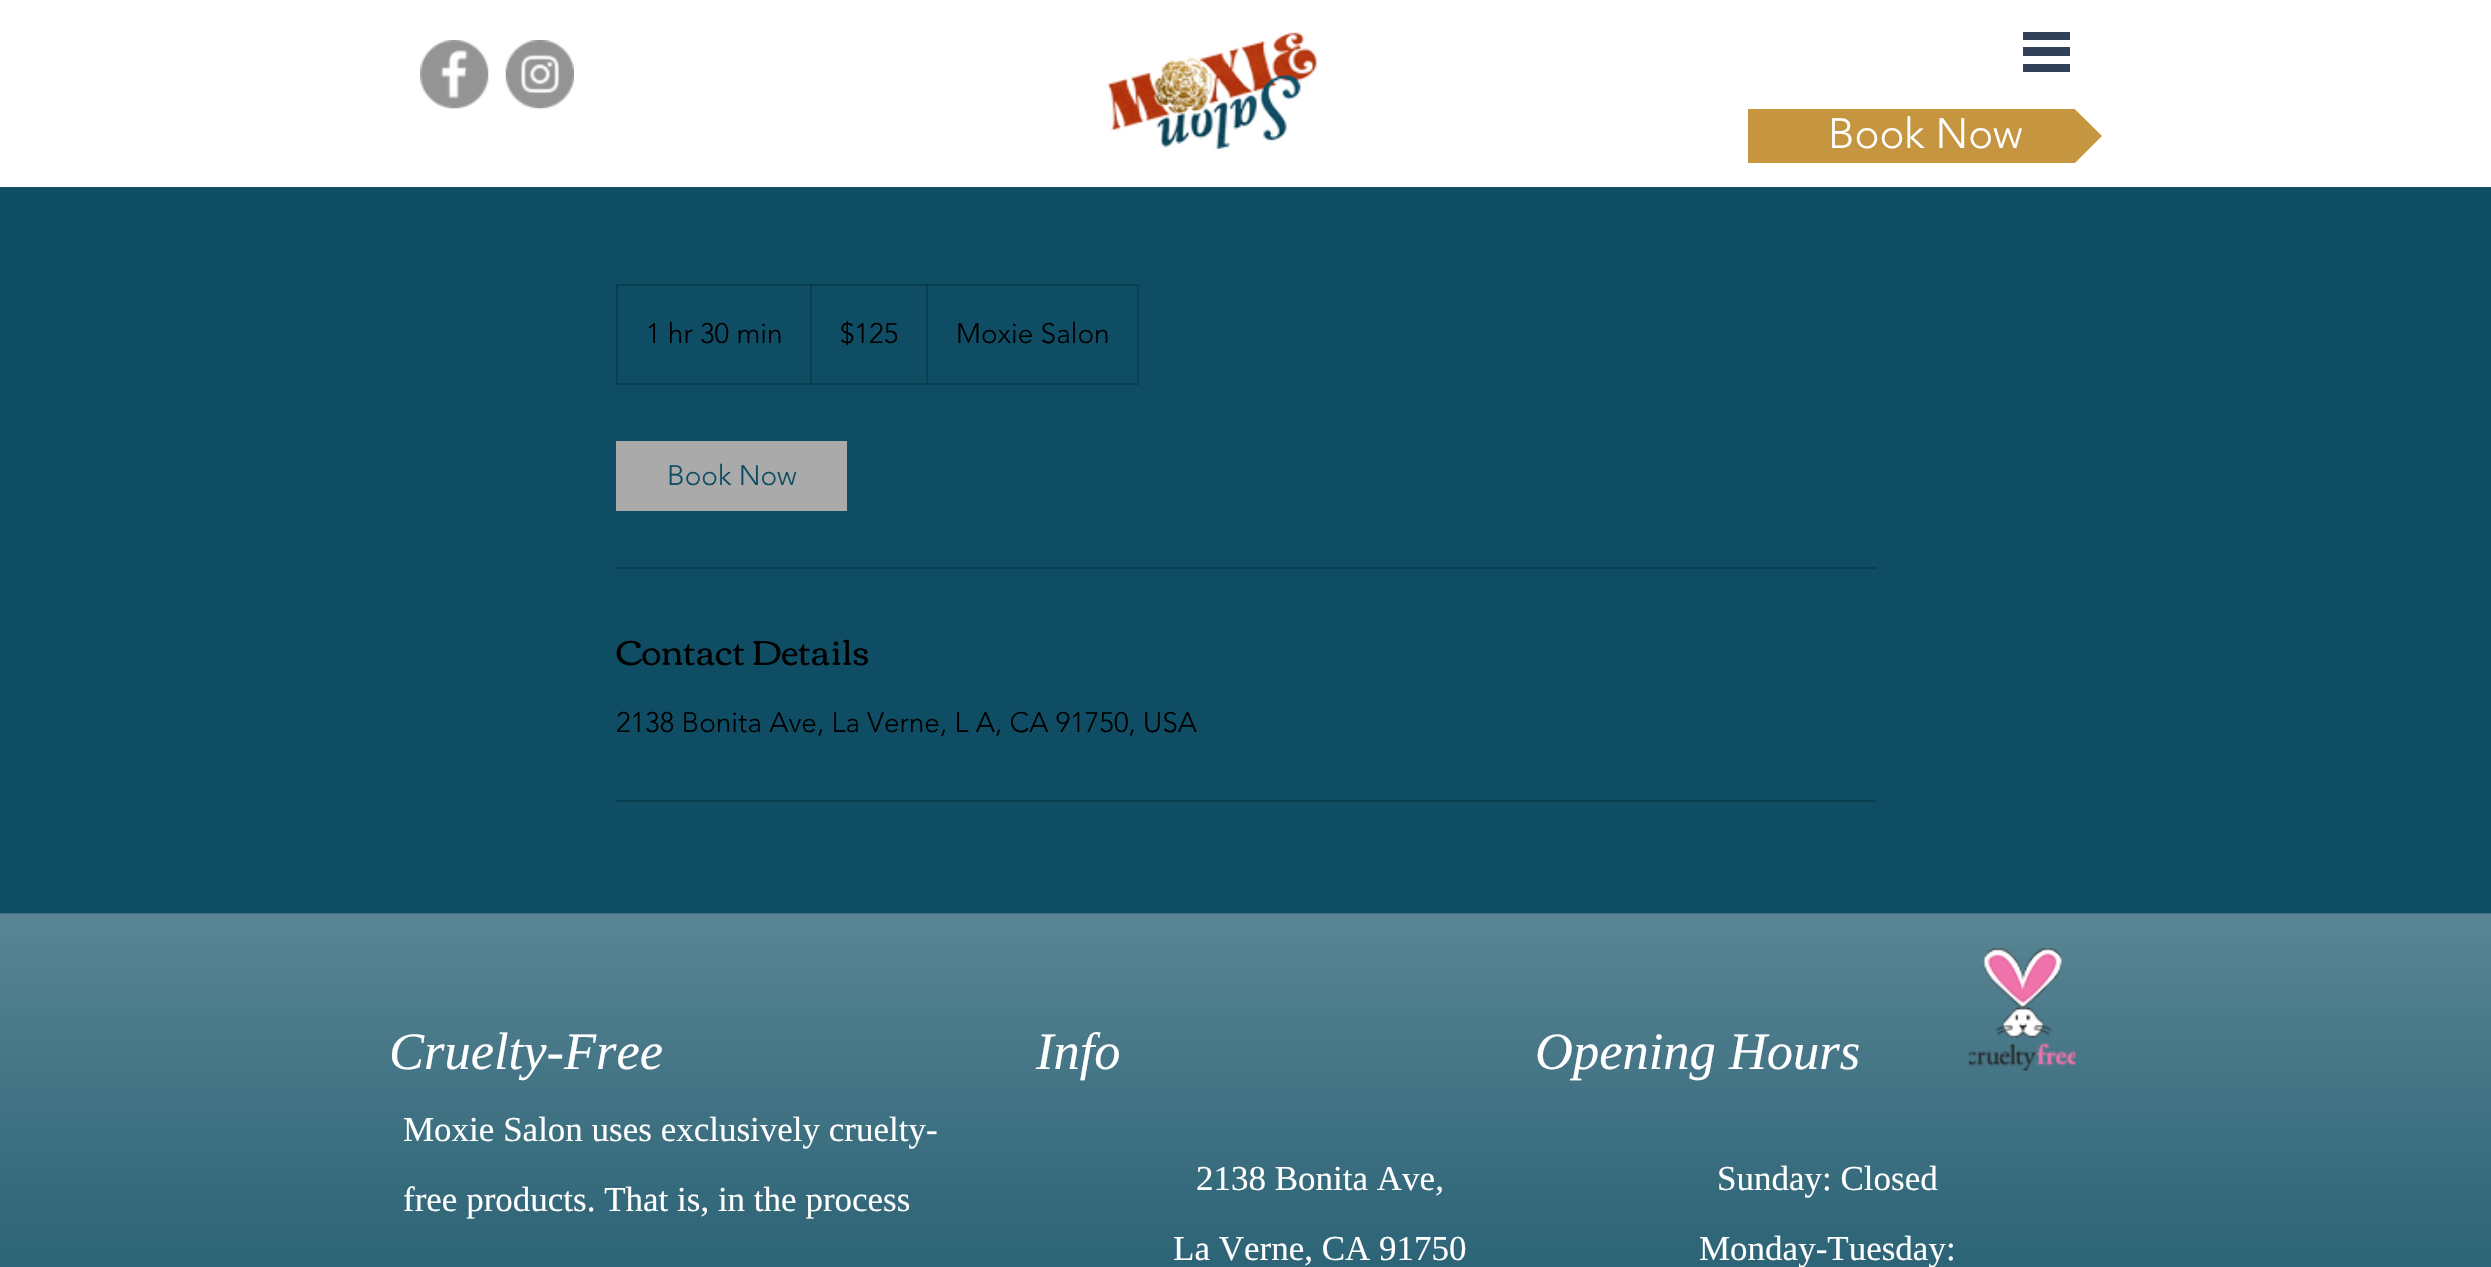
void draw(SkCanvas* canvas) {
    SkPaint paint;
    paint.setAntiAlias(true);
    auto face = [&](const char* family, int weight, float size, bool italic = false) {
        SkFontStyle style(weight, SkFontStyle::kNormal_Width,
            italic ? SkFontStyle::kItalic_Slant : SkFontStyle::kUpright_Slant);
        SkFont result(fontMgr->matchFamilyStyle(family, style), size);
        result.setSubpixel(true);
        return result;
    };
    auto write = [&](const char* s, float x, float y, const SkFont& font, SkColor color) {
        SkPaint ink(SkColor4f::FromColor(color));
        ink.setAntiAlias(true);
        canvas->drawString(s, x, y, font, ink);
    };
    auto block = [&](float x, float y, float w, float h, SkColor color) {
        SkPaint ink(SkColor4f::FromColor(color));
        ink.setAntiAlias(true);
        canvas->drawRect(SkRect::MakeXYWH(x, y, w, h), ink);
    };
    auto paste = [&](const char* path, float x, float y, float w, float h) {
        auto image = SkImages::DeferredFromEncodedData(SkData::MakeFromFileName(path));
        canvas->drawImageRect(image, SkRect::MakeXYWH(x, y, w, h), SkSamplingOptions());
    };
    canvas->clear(SkColorSetRGB(14, 77, 99));
    block(0, 0, 2491, 187, SK_ColorWHITE);
    block(0, 187, 2491, 1, SkColorSetRGB(24, 84, 105));
    paste("pic1.png", 420, 40, 69, 69);
    paste("pic2.png", 505, 40, 69, 69);
    paste("pic3.png", 1107, 32, 211, 119);
    block(2023, 32, 47, 8, SkColorSetRGB(50, 65, 88));
    block(2023, 47, 47, 9, SkColorSetRGB(50, 65, 88));
    block(2023, 64, 47, 8, SkColorSetRGB(50, 65, 88));
    block(1748, 109, 266, 54, SkColorSetRGB(198, 149, 63));
    canvas->save();
    canvas->clipRect(SkRect::MakeXYWH(1748, 109, 354, 54));
    paint.setColor(SkColorSetRGB(198, 149, 63));
    canvas->drawPath(SkPathBuilder().moveTo(2102, 136).lineTo(2014, 136).lineTo(2014, 49).close().detach(), paint);
    canvas->drawPath(SkPathBuilder().moveTo(2014, 136).lineTo(2102, 136).lineTo(2014, 224).close().detach(), paint);
    canvas->restore();
    auto kFont1 = face("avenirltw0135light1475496", 300, 42);
    write("Book Now", 1828, 148, kFont1, SK_ColorWHITE);
    paint.setStyle(SkPaint::kStroke_Style);
    paint.setStrokeWidth(2);
    paint.setColor(SkColorSetRGB(11, 62, 79));
    canvas->drawRect(SkRect::MakeXYWH(617, 285, 521, 99), paint);
    auto kFont2 = face("avenirltw0135light1475496", 300, 28);
    write("1 hr 30 min", 646, 343, kFont2, SK_ColorBLACK);
    paint.setStyle(SkPaint::kFill_Style);
    paint.setColor(SkColorSetARGB(51, 0, 0, 0));
    canvas->drawPath(SkPathBuilder().moveTo(810, 383).lineTo(810, 284).lineTo(812, 285).lineTo(812, 383).close().detach(), paint);
    write("$125", 840, 343, kFont2, SK_ColorBLACK);
    canvas->drawPath(SkPathBuilder().moveTo(926, 383).lineTo(926, 284).lineTo(928, 285).lineTo(928, 383).close().detach(), paint);
    write("Moxie Salon", 956, 343, kFont2, SK_ColorBLACK);
    block(616, 441, 231, 70, SkColorSetRGB(170, 170, 170));
    write("Book Now", 667, 485, kFont2, SkColorSetRGB(14, 77, 99));
    block(616, 567, 1260, 2, SkColorSetRGB(11, 62, 79));
    auto kFont3 = face("Corben", 400, 35);
    write("Contact Details", 616, 665, kFont3, SK_ColorBLACK);
    write("2138 Bonita Ave, La Verne, L A, CA 91750, USA", 616, 732, kFont2, SK_ColorBLACK);
    block(616, 800, 1260, 2, SkColorSetRGB(11, 62, 79));
    block(0, 914, 2491, 353, SkColorSetRGB(31, 90, 110));
    paste("pic4.png", 0, 913, 2491, 354);
    auto kFont4 = face("Liberation Serif", 400, 52.5f, true);
    write("Cruelty-Free", 389, 1069, kFont4, SK_ColorWHITE);
    write("Info", 1036, 1069, kFont4, SK_ColorWHITE);
    paste("pic5.png", 1968, 948, 108, 123);
    auto kFont5 = face("Liberation Serif", 400, 35);
    write("Moxie Salon uses exclusively cruelty-", 403, 1141, kFont5, SK_ColorWHITE);
    write("free products. That is, in the process", 403, 1211, kFont5, SK_ColorWHITE);
    write("Opening Hours", 1535, 1069, kFont4, SK_ColorWHITE);
    write("2138 Bonita Ave,", 1196, 1190, kFont5, SK_ColorWHITE);
    write("La Verne, CA 91750", 1173, 1260, kFont5, SK_ColorWHITE);
    write("Sunday: Closed", 1717, 1190, kFont5, SK_ColorWHITE);
    write("Monday-Tuesday:", 1699, 1260, kFont5, SK_ColorWHITE);
}
